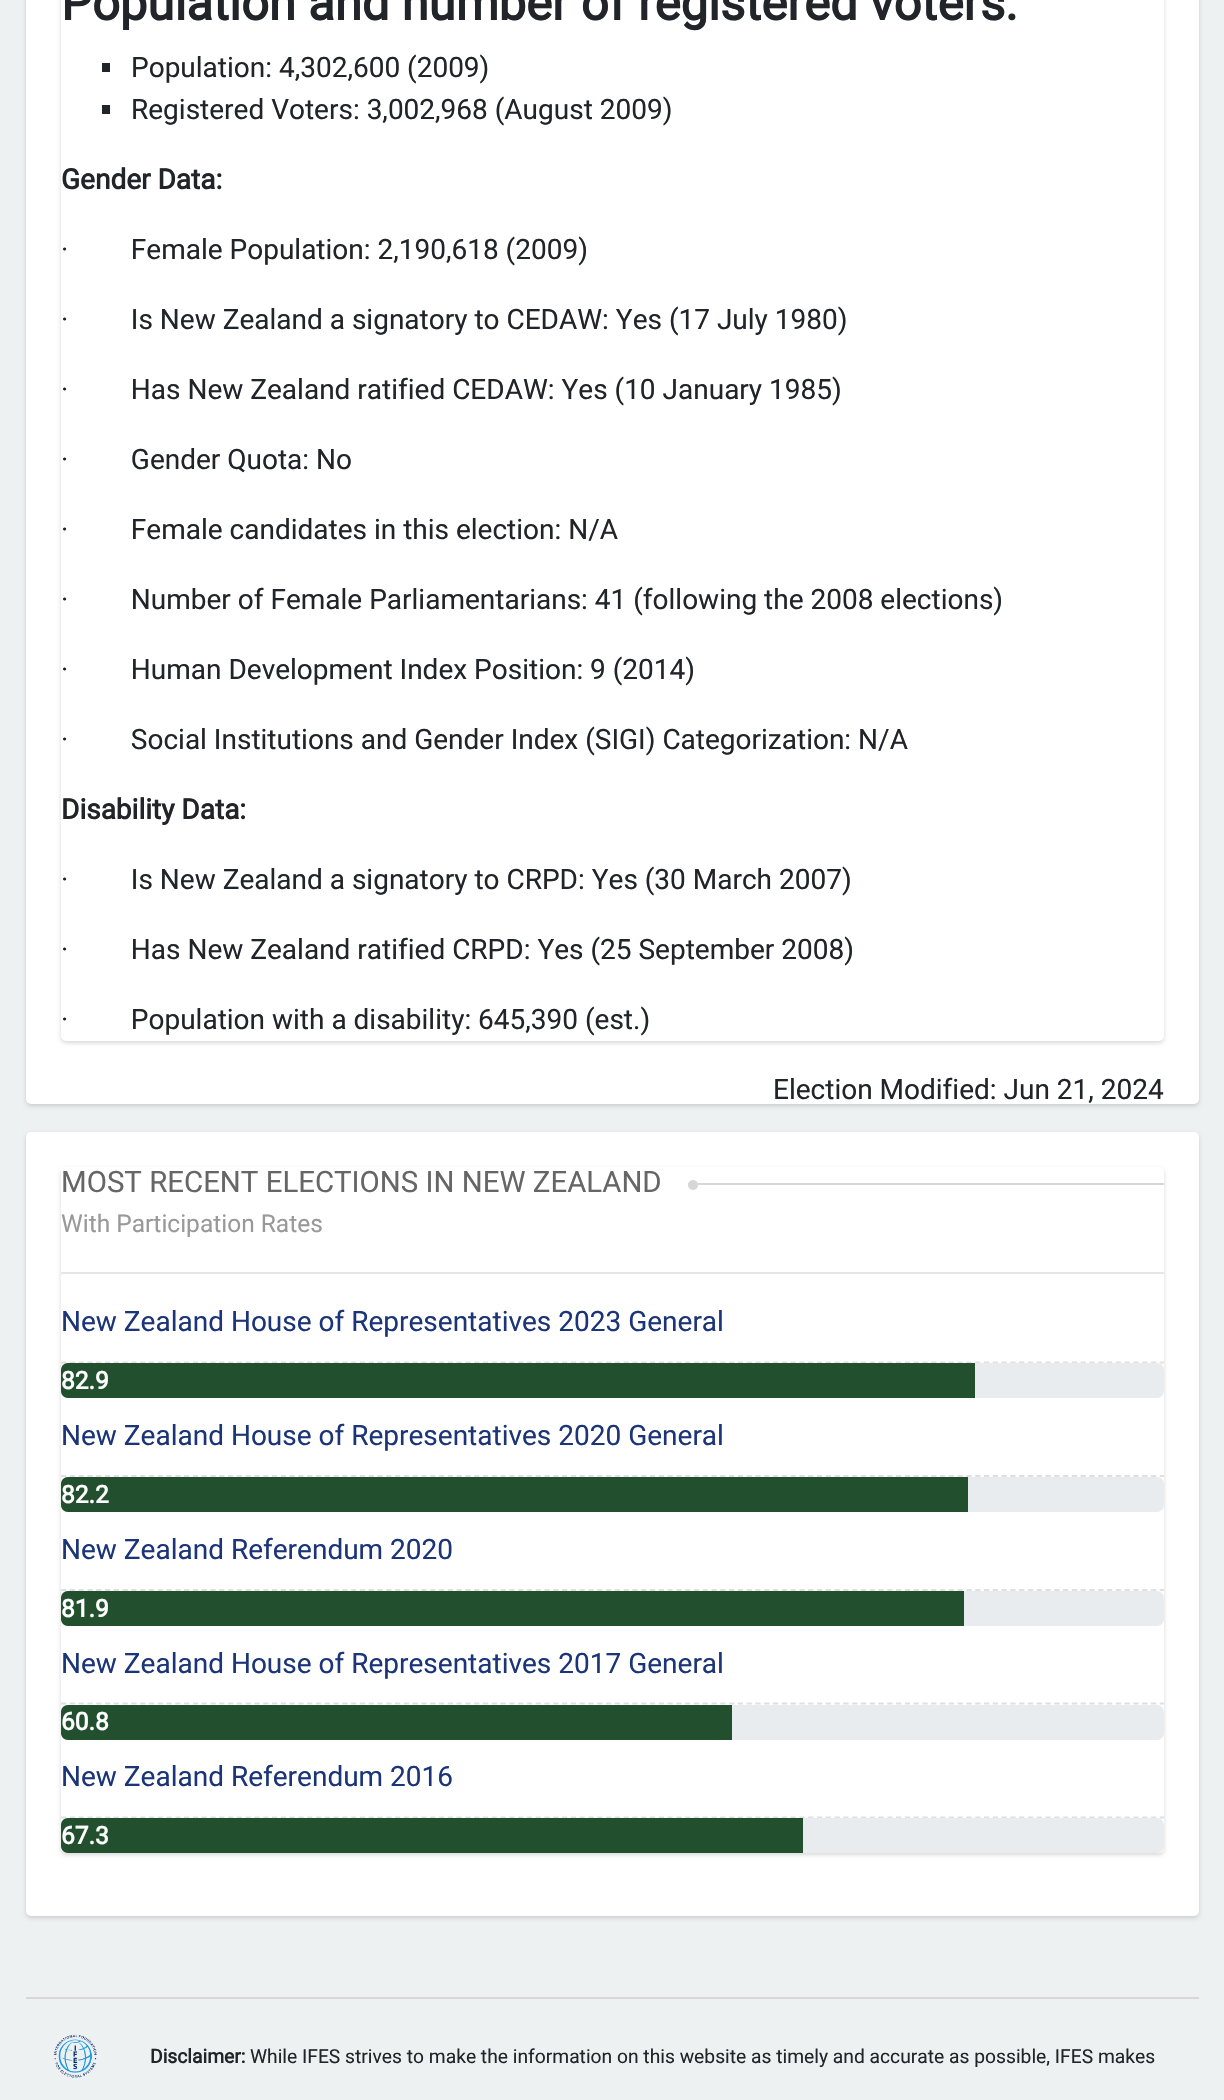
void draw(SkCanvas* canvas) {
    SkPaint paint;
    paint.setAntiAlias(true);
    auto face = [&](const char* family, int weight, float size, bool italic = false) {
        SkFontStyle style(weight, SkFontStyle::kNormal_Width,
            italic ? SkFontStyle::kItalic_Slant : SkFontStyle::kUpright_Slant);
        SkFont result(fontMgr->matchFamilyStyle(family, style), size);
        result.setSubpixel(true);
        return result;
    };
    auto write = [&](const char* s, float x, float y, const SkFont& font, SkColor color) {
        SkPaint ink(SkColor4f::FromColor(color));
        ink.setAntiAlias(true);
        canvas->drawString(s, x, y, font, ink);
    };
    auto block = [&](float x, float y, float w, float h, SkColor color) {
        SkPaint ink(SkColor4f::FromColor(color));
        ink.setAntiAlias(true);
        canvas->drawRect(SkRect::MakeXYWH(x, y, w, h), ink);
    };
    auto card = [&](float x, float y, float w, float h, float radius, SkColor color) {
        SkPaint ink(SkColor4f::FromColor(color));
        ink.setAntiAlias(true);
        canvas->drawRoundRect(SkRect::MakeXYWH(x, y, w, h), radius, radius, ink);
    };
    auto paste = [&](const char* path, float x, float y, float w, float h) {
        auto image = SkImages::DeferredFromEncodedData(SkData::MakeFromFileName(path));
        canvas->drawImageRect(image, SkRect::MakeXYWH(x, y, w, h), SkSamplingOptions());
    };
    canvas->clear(SkColorSetRGB(238, 241, 242));
    paint.setColor(SkColorSetARGB(38, 0, 0, 0));
    paint.setMaskFilter(SkMaskFilter::MakeBlur(kNormal_SkBlurStyle, 2));
    canvas->drawRoundRect(SkRect::MakeXYWH(26, -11, 1173, 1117), 5, 5, paint);
    paint.setMaskFilter(nullptr);
    card(26, -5, 1173, 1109, 5, SK_ColorWHITE);
    paint.setMaskFilter(SkMaskFilter::MakeBlur(kNormal_SkBlurStyle, 2));
    canvas->drawRoundRect(SkRect::MakeXYWH(61, -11, 1103, 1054), 5, 5, paint);
    paint.setMaskFilter(nullptr);
    card(61, -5, 1103, 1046, 5, SK_ColorWHITE);
    auto kFont1 = face("Roboto", 700, 49);
    write("Population and number of registered voters:", 61, 20, kFont1, SkColorSetRGB(33, 37, 41));
    block(102, 63, 8, 9, SkColorSetRGB(33, 37, 41));
    auto kFont2 = face("Roboto", 400, 28);
    write("Population: 4,302,600 (2009)", 131, 77, kFont2, SkColorSetRGB(33, 37, 41));
    block(102, 105, 8, 9, SkColorSetRGB(33, 37, 41));
    write("Registered Voters: 3,002,968 (August 2009)", 131, 119, kFont2, SkColorSetRGB(33, 37, 41));
    auto kFont3 = face("Roboto", 700, 28);
    write("Gender Data:", 61, 189, kFont3, SkColorSetRGB(33, 37, 41));
    write("·         Female Population: 2,190,618 (2009)", 61, 259, kFont2, SkColorSetRGB(33, 37, 41));
    write("·         Is New Zealand a signatory to CEDAW: Yes (17 July 1980)", 61, 329, kFont2, SkColorSetRGB(33, 37, 41));
    write("·         Has New Zealand ratified CEDAW: Yes (10 January 1985)", 61, 399, kFont2, SkColorSetRGB(33, 37, 41));
    write("·         Gender Quota: No", 61, 469, kFont2, SkColorSetRGB(33, 37, 41));
    write("·         Female candidates in this election: N/A", 61, 539, kFont2, SkColorSetRGB(33, 37, 41));
    write("·         Number of Female Parliamentarians: 41 (following the 2008 elections)", 61, 609, kFont2, SkColorSetRGB(33, 37, 41));
    write("·         Human Development Index Position: 9 (2014)", 61, 679, kFont2, SkColorSetRGB(33, 37, 41));
    write("·         Social Institutions and Gender Index (SIGI) Categorization: N/A", 61, 749, kFont2, SkColorSetRGB(33, 37, 41));
    write("Disability Data:", 61, 819, kFont3, SkColorSetRGB(33, 37, 41));
    write("·         Is New Zealand a signatory to CRPD: Yes (30 March 2007)", 61, 889, kFont2, SkColorSetRGB(33, 37, 41));
    write("·         Has New Zealand ratified CRPD: Yes (25 September 2008)", 61, 959, kFont2, SkColorSetRGB(33, 37, 41));
    write("·         Population with a disability: 645,390 (est.)", 61, 1029, kFont2, SkColorSetRGB(33, 37, 41));
    write("Election Modified: Jun 21, 2024", 773, 1099, kFont2, SkColorSetRGB(33, 37, 41));
    paint.setMaskFilter(SkMaskFilter::MakeBlur(kNormal_SkBlurStyle, 2));
    canvas->drawRoundRect(SkRect::MakeXYWH(26, 1134, 1173, 784), 5, 5, paint);
    paint.setMaskFilter(nullptr);
    card(26, 1132, 1173, 784, 5, SK_ColorWHITE);
    paint.setMaskFilter(SkMaskFilter::MakeBlur(kNormal_SkBlurStyle, 2));
    canvas->drawRoundRect(SkRect::MakeXYWH(61, 1169, 1103, 686), 5, 5, paint);
    paint.setMaskFilter(nullptr);
    card(61, 1167, 1103, 686, 5, SK_ColorWHITE);
    block(61, 1167, 3, 4, SK_ColorWHITE);
    auto kFont4 = face("Roboto", 400, 29.4f);
    write("MOST RECENT ELECTIONS IN NEW ZEALAND", 61, 1192, kFont4, SkColorSetRGB(102, 102, 102));
    block(688, 1183, 476, 2, SkColorSetRGB(215, 215, 215));
    paint.setColor(SkColorSetRGB(215, 215, 215));
    canvas->drawCircle(693, 1185, 5, paint);
    auto kFont5 = face("Roboto", 400, 24.5f);
    write("With Participation Rates", 61, 1232, kFont5, SkColorSetRGB(153, 153, 153));
    block(61, 1272, 1103, 2, SkColorSetRGB(230, 230, 230));
    paint.setStyle(SkPaint::kStroke_Style);
    paint.setStrokeWidth(1.8f);
    paint.setColor(SkColorSetRGB(224, 224, 224));
    paint.setPathEffect(SkDashPathEffect::Make({{5.25f, 3.54f}}, 0));
    canvas->drawPath(SkPathBuilder().moveTo(61, 1362.5f).lineTo(1164, 1362.5f).detach(), paint);
    paint.setPathEffect(nullptr);
    write("New Zealand House of Representatives 2023 General", 61, 1331, kFont2, SkColorSetRGB(27, 53, 120));
    card(61, 1363, 1103, 35, 7, SkColorSetRGB(233, 236, 239));
    paint.setStyle(SkPaint::kFill_Style);
    paint.setColor(SkColorSetRGB(34, 79, 45));
    canvas->drawPath(SkPathBuilder().moveTo(68, 1363).lineTo(975, 1363).lineTo(975, 1398).lineTo(68, 1398).cubicTo(64, 1398, 61, 1395, 61, 1391).lineTo(61, 1370).cubicTo(61, 1366, 64, 1363, 68, 1363).close().detach(), paint);
    auto kFont6 = face("Roboto", 700, 24.5f);
    write("82.9", 61, 1389, kFont6, SK_ColorWHITE);
    paint.setStyle(SkPaint::kStroke_Style);
    paint.setColor(SkColorSetRGB(224, 224, 224));
    paint.setPathEffect(SkDashPathEffect::Make({{5.25f, 3.54f}}, 0));
    canvas->drawPath(SkPathBuilder().moveTo(61, 1476).lineTo(1164, 1476).detach(), paint);
    paint.setPathEffect(nullptr);
    write("New Zealand House of Representatives 2020 General", 61, 1445, kFont2, SkColorSetRGB(27, 53, 120));
    card(61, 1477, 1103, 35, 7, SkColorSetRGB(233, 236, 239));
    paint.setStyle(SkPaint::kFill_Style);
    paint.setColor(SkColorSetRGB(34, 79, 45));
    canvas->drawPath(SkPathBuilder().moveTo(68, 1477).lineTo(968, 1477).lineTo(968, 1512).lineTo(68, 1512).cubicTo(64, 1512, 61, 1509, 61, 1505).lineTo(61, 1484).cubicTo(61, 1480, 64, 1477, 68, 1477).close().detach(), paint);
    write("82.2", 61, 1503, kFont6, SK_ColorWHITE);
    paint.setStyle(SkPaint::kStroke_Style);
    paint.setColor(SkColorSetRGB(224, 224, 224));
    paint.setPathEffect(SkDashPathEffect::Make({{5.25f, 3.54f}}, 0));
    canvas->drawPath(SkPathBuilder().moveTo(61, 1590).lineTo(1164, 1590).detach(), paint);
    paint.setPathEffect(nullptr);
    write("New Zealand Referendum 2020", 61, 1559, kFont2, SkColorSetRGB(27, 53, 120));
    card(61, 1591, 1103, 35, 7, SkColorSetRGB(233, 236, 239));
    paint.setStyle(SkPaint::kFill_Style);
    paint.setColor(SkColorSetRGB(34, 79, 45));
    canvas->drawPath(SkPathBuilder().moveTo(68, 1591).lineTo(964, 1591).lineTo(964, 1626).lineTo(68, 1626).cubicTo(64, 1626, 61, 1623, 61, 1619).lineTo(61, 1598).cubicTo(61, 1594, 64, 1591, 68, 1591).close().detach(), paint);
    write("81.9", 61, 1617, kFont6, SK_ColorWHITE);
    paint.setStyle(SkPaint::kStroke_Style);
    paint.setColor(SkColorSetRGB(224, 224, 224));
    paint.setPathEffect(SkDashPathEffect::Make({{5.25f, 3.54f}}, 0));
    canvas->drawPath(SkPathBuilder().moveTo(61, 1703.5f).lineTo(1164, 1703.5f).detach(), paint);
    paint.setPathEffect(nullptr);
    write("New Zealand House of Representatives 2017 General", 61, 1673, kFont2, SkColorSetRGB(27, 53, 120));
    card(61, 1705, 1103, 35, 7, SkColorSetRGB(233, 236, 239));
    paint.setStyle(SkPaint::kFill_Style);
    paint.setColor(SkColorSetRGB(34, 79, 45));
    canvas->drawPath(SkPathBuilder().moveTo(68, 1705).lineTo(732, 1705).lineTo(732, 1740).lineTo(68, 1740).cubicTo(64, 1740, 61, 1737, 61, 1733).lineTo(61, 1712).cubicTo(61, 1708, 64, 1705, 68, 1705).close().detach(), paint);
    write("60.8", 61, 1730, kFont6, SK_ColorWHITE);
    paint.setStyle(SkPaint::kStroke_Style);
    paint.setColor(SkColorSetRGB(224, 224, 224));
    paint.setPathEffect(SkDashPathEffect::Make({{5.25f, 3.54f}}, 0));
    canvas->drawPath(SkPathBuilder().moveTo(61, 1817.5f).lineTo(1164, 1817.5f).detach(), paint);
    paint.setPathEffect(nullptr);
    write("New Zealand Referendum 2016", 61, 1786, kFont2, SkColorSetRGB(27, 53, 120));
    card(61, 1818, 1103, 35, 7, SkColorSetRGB(233, 236, 239));
    paint.setStyle(SkPaint::kFill_Style);
    paint.setColor(SkColorSetRGB(34, 79, 45));
    canvas->drawPath(SkPathBuilder().moveTo(68, 1818).lineTo(803, 1818).lineTo(803, 1853).lineTo(68, 1853).cubicTo(64, 1853, 61, 1850, 61, 1846).lineTo(61, 1825).cubicTo(61, 1821, 64, 1818, 68, 1818).close().detach(), paint);
    write("67.3", 61, 1844, kFont6, SK_ColorWHITE);
    block(26, 1997, 1173, 2, SkColorSetRGB(215, 215, 215));
    paste("pic1.png", 53, 2034, 44, 44);
    auto kFont7 = face("Roboto", 700, 19.25f);
    write("Disclaimer:", 150, 2063, kFont7, SkColorSetRGB(33, 37, 41));
    auto kFont8 = face("Roboto", 400, 19.25f);
    write("While IFES strives to make the information on this website as timely and accurate as possible, IFES makes", 250, 2063, kFont8, SkColorSetRGB(33, 37, 41));
}
